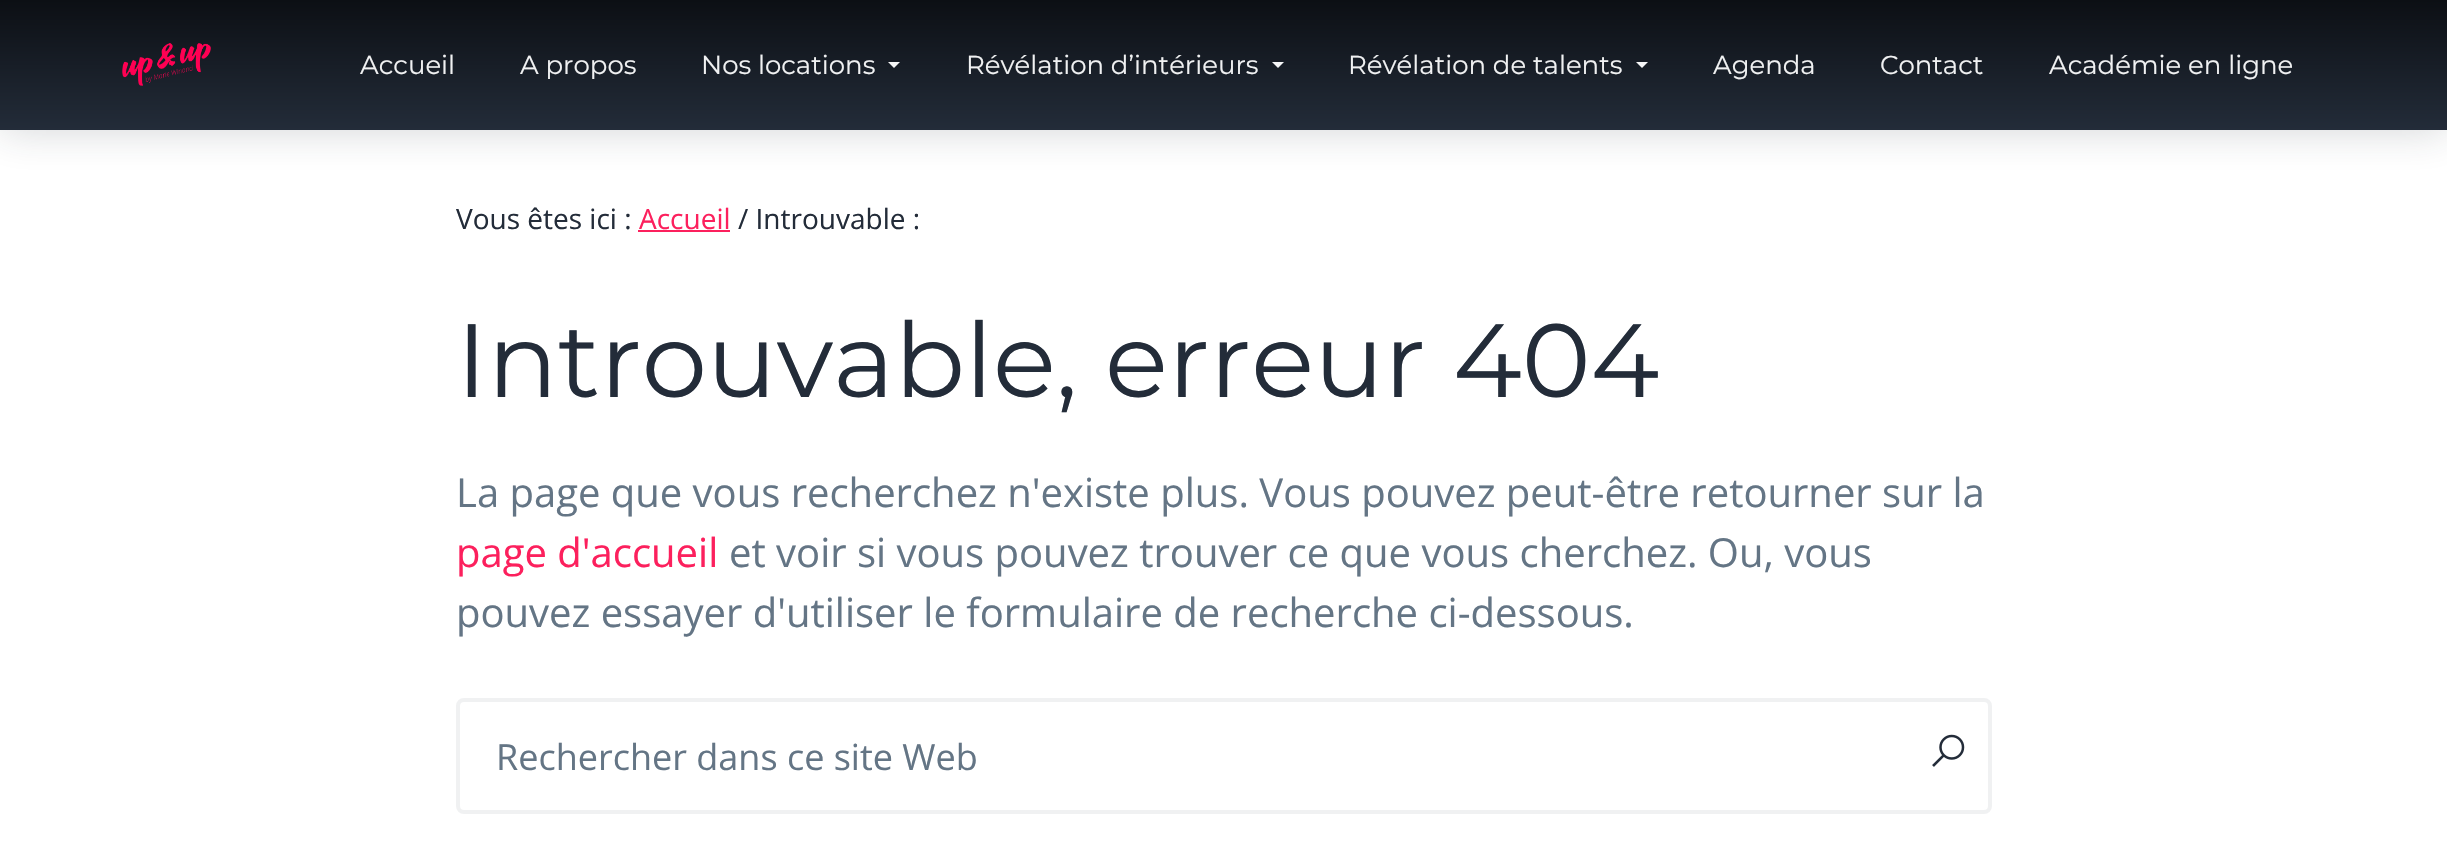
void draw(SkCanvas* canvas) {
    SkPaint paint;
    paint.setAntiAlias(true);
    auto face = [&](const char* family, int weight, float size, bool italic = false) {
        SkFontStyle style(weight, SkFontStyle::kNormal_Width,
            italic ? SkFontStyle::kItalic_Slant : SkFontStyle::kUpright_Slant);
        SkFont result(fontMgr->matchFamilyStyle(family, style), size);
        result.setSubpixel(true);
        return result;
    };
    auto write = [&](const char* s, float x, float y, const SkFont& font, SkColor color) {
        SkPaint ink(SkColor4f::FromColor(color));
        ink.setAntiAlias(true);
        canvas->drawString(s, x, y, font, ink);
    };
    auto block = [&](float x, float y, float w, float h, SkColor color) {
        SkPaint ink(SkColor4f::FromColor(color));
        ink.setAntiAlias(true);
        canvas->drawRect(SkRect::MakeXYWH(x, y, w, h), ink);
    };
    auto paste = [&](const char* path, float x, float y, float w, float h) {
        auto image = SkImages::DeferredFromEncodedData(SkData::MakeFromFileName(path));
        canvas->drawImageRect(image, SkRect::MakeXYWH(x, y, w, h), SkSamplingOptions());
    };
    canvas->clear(SK_ColorWHITE);
    paint.setColor(SkColorSetARGB(51, 35, 44, 57));
    paint.setMaskFilter(SkMaskFilter::MakeBlur(kNormal_SkBlurStyle, 20));
    canvas->drawRect(SkRect::MakeXYWH(0, 0, 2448, 130), paint);
    paint.setMaskFilter(nullptr);
    {
        const SkColor colors[] = {SkColorSetRGB(12, 15, 20), SkColorSetRGB(35, 44, 57)};
        const float stops[] = {0, 1};
        const SkPoint ends[] = {{1224, 0}, {1224, 130}};
        paint.setShader(SkGradientShader::MakeLinear(ends, colors, stops, 2, SkTileMode::kClamp));
        paint.setAlpha(255);
    }
    canvas->drawRect(SkRect::MakeXYWH(0, 0, 2447, 130), paint);
    paste("pic1.png", 122, 43, 89, 43);
    auto kFont1 = face("Montserrat", 400, 26);
    write("Accueil", 360, 74, kFont1, SkColorSetRGB(240, 241, 242));
    write("A propos", 520, 74, kFont1, SkColorSetRGB(240, 241, 242));
    write("Nos locations", 701, 74, kFont1, SkColorSetRGB(240, 241, 242));
    paint.setShader(nullptr);
    paint.setColor(SkColorSetRGB(246, 247, 248));
    canvas->drawPath(SkPathBuilder().moveTo(888, 62).lineTo(900, 62).lineTo(894, 68).close().detach(), paint);
    write("Révélation d’intérieurs", 966, 74, kFont1, SkColorSetRGB(240, 241, 242));
    canvas->drawPath(SkPathBuilder().moveTo(1272, 62).lineTo(1284, 62).lineTo(1278, 68).close().detach(), paint);
    write("Révélation de talents", 1348, 74, kFont1, SkColorSetRGB(240, 241, 242));
    canvas->drawPath(SkPathBuilder().moveTo(1636, 62).lineTo(1648, 62).lineTo(1642, 68).close().detach(), paint);
    write("Agenda", 1713, 74, kFont1, SkColorSetRGB(240, 241, 242));
    write("Contact", 1880, 74, kFont1, SkColorSetRGB(240, 241, 242));
    write("Académie en ligne", 2049, 74, kFont1, SkColorSetRGB(240, 241, 242));
    auto kFont2 = face("Open Sans", 400, 28);
    write("Vous êtes ici :", 456, 229, kFont2, SkColorSetRGB(35, 44, 57));
    write("Accueil", 639, 229, kFont2, SkColorSetRGB(252, 32, 93));
    block(638, 230, 92, 2, SkColorSetRGB(252, 32, 93));
    write("/ Introuvable :", 738, 229, kFont2, SkColorSetRGB(35, 44, 57));
    auto kFont3 = face("Montserrat", 400, 104);
    write("Introuvable, erreur 404", 456, 397, kFont3, SkColorSetRGB(35, 44, 57));
    auto kFont4 = face("Open Sans", 400, 40);
    write("La page que vous recherchez n'existe plus. Vous pouvez peut-être retourner sur la", 456, 507, kFont4, SkColorSetRGB(100, 117, 133));
    write("page d'accueil", 456, 567, kFont4, SkColorSetRGB(252, 32, 93));
    write("et voir si vous pouvez trouver ce que vous cherchez. Ou, vous", 729, 567, kFont4, SkColorSetRGB(100, 117, 133));
    write("pouvez essayer d'utiliser le formulaire de recherche ci-dessous.", 456, 627, kFont4, SkColorSetRGB(100, 117, 133));
    paint.setStyle(SkPaint::kStroke_Style);
    paint.setStrokeWidth(4);
    paint.setColor(SkColorSetRGB(240, 241, 242));
    canvas->drawRoundRect(SkRect::MakeXYWH(458, 700, 1532, 112), 6, 6, paint);
    auto kFont5 = face("Open Sans", 400, 36);
    write("Rechercher dans ce site Web", 496, 770, kFont5, SkColorSetRGB(100, 117, 133));
    paste("pic2.png", 1932, 734, 33, 33);
}
